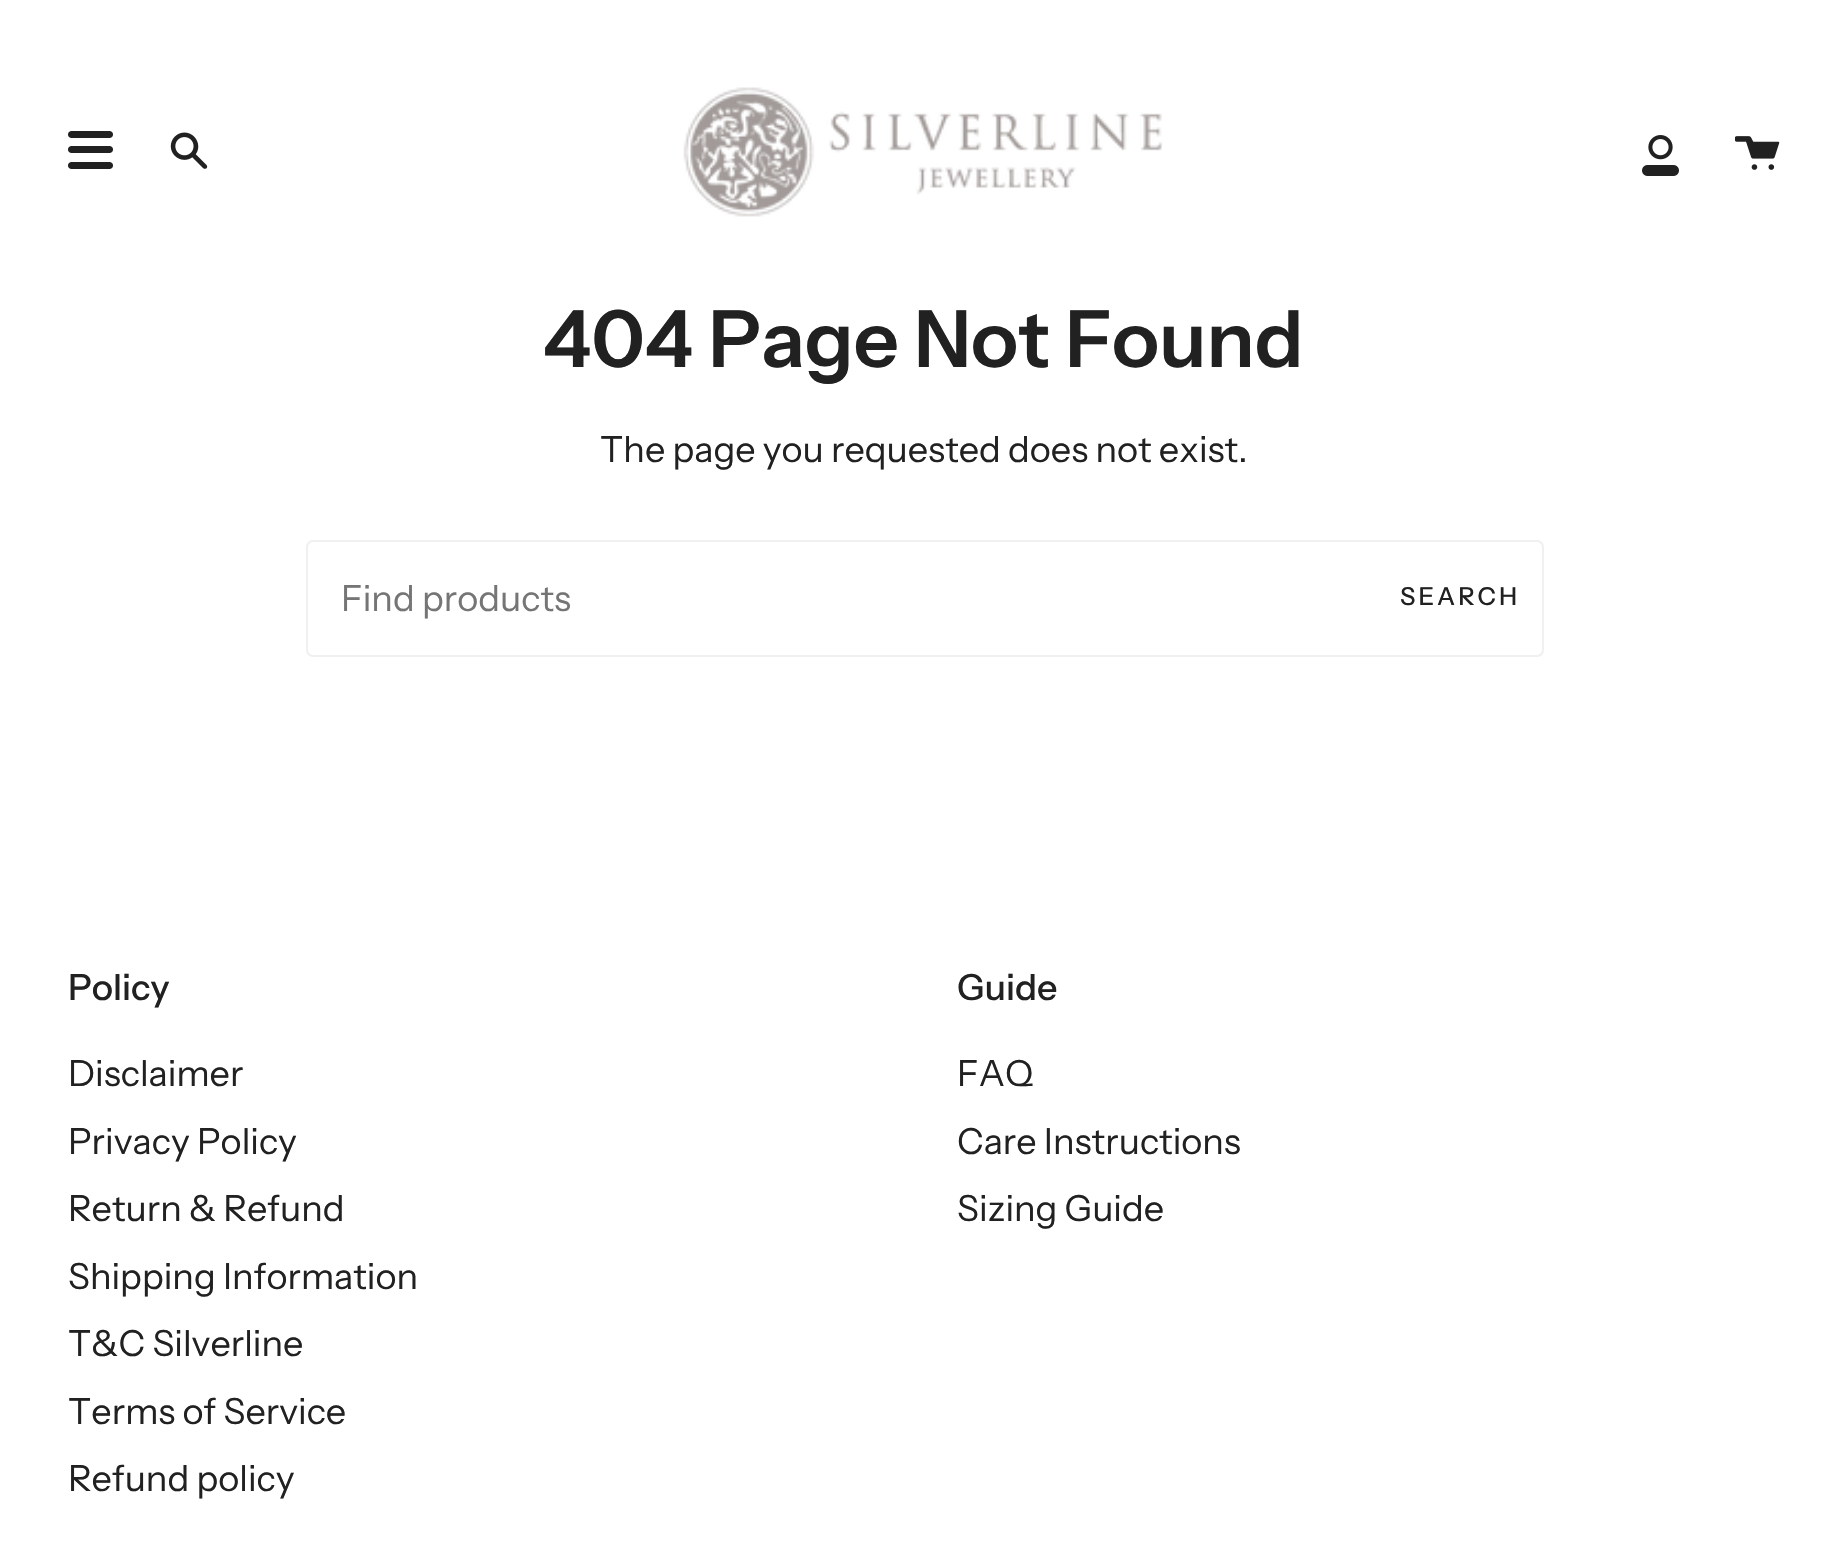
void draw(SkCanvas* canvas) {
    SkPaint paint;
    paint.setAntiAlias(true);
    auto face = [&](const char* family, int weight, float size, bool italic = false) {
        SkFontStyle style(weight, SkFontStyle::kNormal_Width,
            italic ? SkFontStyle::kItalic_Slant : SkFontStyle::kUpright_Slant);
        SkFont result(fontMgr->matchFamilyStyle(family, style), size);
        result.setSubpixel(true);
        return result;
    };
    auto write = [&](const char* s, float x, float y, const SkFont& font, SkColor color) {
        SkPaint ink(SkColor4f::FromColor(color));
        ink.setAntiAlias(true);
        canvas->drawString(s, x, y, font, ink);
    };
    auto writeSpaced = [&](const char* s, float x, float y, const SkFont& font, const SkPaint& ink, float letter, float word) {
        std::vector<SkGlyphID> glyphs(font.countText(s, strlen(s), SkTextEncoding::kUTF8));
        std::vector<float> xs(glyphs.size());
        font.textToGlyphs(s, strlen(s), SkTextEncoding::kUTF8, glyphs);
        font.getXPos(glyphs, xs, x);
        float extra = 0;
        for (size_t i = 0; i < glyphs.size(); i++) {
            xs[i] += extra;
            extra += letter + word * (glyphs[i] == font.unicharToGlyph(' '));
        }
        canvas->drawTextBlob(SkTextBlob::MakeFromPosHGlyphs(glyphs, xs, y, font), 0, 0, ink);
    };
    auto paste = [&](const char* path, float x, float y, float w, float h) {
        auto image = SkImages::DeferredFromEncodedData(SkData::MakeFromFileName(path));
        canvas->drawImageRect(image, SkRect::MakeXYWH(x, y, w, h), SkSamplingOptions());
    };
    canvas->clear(SK_ColorWHITE);
    paint.setColor(SkColorSetRGB(33, 33, 33));
    canvas->drawPath(SkPathBuilder().moveTo(71.5f, 131).lineTo(106, 131).lineTo(106, 138).lineTo(71.5f, 138).cubicTo(69.5f, 138, 68, 136.5f, 68, 134.5f).cubicTo(68, 132.5f, 69.5f, 131, 71.5f, 131).close().detach(), paint);
    canvas->drawPath(SkPathBuilder().moveTo(74, 131).lineTo(109.5f, 131).cubicTo(111.5f, 131, 113, 132.5f, 113, 134.5f).cubicTo(113, 136.5f, 111.5f, 138, 109.5f, 138).lineTo(74, 138).close().detach(), paint);
    canvas->drawPath(SkPathBuilder().moveTo(71.5f, 146).lineTo(106, 146).lineTo(106, 153).lineTo(71.5f, 153).cubicTo(69.5f, 153, 68, 151.5f, 68, 149.5f).cubicTo(68, 147.5f, 69.5f, 146, 71.5f, 146).close().detach(), paint);
    canvas->drawPath(SkPathBuilder().moveTo(74, 146).lineTo(109.5f, 146).cubicTo(111.5f, 146, 113, 147.5f, 113, 149.5f).cubicTo(113, 151.5f, 111.5f, 153, 109.5f, 153).lineTo(74, 153).close().detach(), paint);
    canvas->drawPath(SkPathBuilder().moveTo(71.5f, 162).lineTo(106, 162).lineTo(106, 169).lineTo(71.5f, 169).cubicTo(69.5f, 169, 68, 167.5f, 68, 165.5f).cubicTo(68, 163.5f, 69.5f, 162, 71.5f, 162).close().detach(), paint);
    canvas->drawPath(SkPathBuilder().moveTo(74, 162).lineTo(109.5f, 162).cubicTo(111.5f, 162, 113, 163.5f, 113, 165.5f).cubicTo(113, 167.5f, 111.5f, 169, 109.5f, 169).lineTo(74, 169).close().detach(), paint);
    paste("pic1.png", 170, 132, 38, 37);
    paste("pic2.png", 683, 87, 480, 130);
    paste("pic3.png", 1642, 135, 37, 41);
    paste("pic4.png", 1735, 136, 45, 34);
    auto kFont1 = face("Instrument Sans", 600, 78.75f);
    write("404 Page Not Found", 543, 367, kFont1, SkColorSetRGB(33, 33, 33));
    auto kFont2 = face("Instrument Sans", 400, 36);
    write("The page you requested does not exist.", 600, 462, kFont2, SkColorSetRGB(33, 33, 33));
    paint.setStyle(SkPaint::kStroke_Style);
    paint.setStrokeWidth(2);
    paint.setColor(SkColorSetRGB(240, 240, 240));
    canvas->drawRoundRect(SkRect::MakeXYWH(307, 541, 1236, 115), 6, 6, paint);
    write("Find products", 341, 611, kFont2, SkColorSetRGB(117, 117, 117));
    auto kFont3 = face("Instrument Sans", 500, 24.75f);
    paint.setStyle(SkPaint::kFill_Style);
    paint.setColor(SkColorSetRGB(33, 33, 33));
    writeSpaced("SEARCH", 1400, 605, kFont3, paint, 3, 0);
    auto kFont4 = face("Instrument Sans", 500, 36);
    write("Policy", 68, 1000, kFont4, SkColorSetRGB(33, 33, 33));
    write("Disclaimer", 68, 1086, kFont2, SkColorSetRGB(33, 33, 33));
    write("Privacy Policy", 68, 1154, kFont2, SkColorSetRGB(33, 33, 33));
    write("Return & Refund", 68, 1221, kFont2, SkColorSetRGB(33, 33, 33));
    write("Shipping Information", 68, 1289, kFont2, SkColorSetRGB(33, 33, 33));
    write("T&C Silverline", 68, 1356, kFont2, SkColorSetRGB(33, 33, 33));
    write("Terms of Service", 68, 1424, kFont2, SkColorSetRGB(33, 33, 33));
    write("Refund policy", 68, 1491, kFont2, SkColorSetRGB(33, 33, 33));
    write("Guide", 957, 1000, kFont4, SkColorSetRGB(33, 33, 33));
    write("FAQ", 957, 1086, kFont2, SkColorSetRGB(33, 33, 33));
    write("Care Instructions", 957, 1154, kFont2, SkColorSetRGB(33, 33, 33));
    write("Sizing Guide", 957, 1221, kFont2, SkColorSetRGB(33, 33, 33));
}
